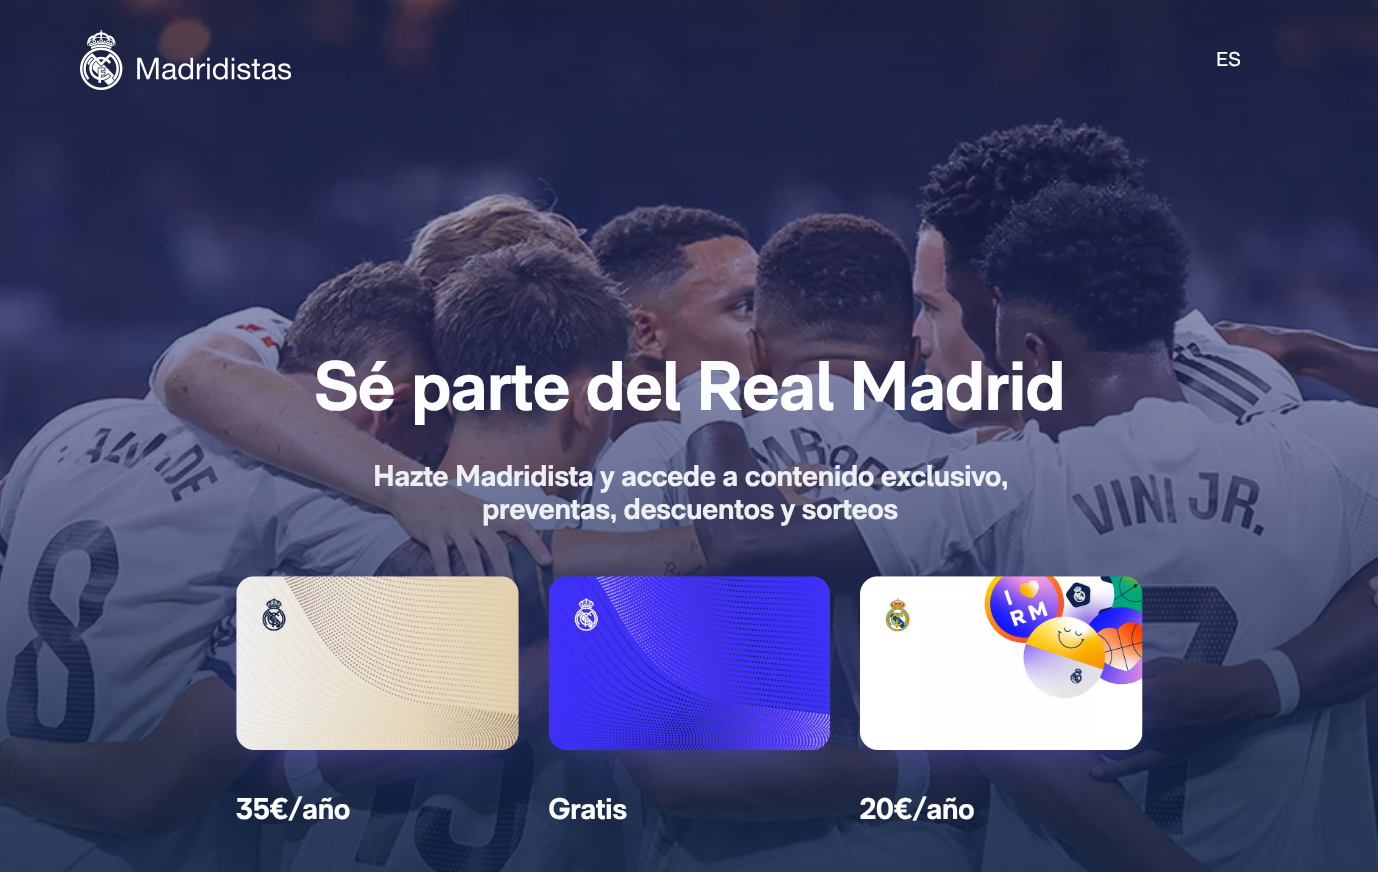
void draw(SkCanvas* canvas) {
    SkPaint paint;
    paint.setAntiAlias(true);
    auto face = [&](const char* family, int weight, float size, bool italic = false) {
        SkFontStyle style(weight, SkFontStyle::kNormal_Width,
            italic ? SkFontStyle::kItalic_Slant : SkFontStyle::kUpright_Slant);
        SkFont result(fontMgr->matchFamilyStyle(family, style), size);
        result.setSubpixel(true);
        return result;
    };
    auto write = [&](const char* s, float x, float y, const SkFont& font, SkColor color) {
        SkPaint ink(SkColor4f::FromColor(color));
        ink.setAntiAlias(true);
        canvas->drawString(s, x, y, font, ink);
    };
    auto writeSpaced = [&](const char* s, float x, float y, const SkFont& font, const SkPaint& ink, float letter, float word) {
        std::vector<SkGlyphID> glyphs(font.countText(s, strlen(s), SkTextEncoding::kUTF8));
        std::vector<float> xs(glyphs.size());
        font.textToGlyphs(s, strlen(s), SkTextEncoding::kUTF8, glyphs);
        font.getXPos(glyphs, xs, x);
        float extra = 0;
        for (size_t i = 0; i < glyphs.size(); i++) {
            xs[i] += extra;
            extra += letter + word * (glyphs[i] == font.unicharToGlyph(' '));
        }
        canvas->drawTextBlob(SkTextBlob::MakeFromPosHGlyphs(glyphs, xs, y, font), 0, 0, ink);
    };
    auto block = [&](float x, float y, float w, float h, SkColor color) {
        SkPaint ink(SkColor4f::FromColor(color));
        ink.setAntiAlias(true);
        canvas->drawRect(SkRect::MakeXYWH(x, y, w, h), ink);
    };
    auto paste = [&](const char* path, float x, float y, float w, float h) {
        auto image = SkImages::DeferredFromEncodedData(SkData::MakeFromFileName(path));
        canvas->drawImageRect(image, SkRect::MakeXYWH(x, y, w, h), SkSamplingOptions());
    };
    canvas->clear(SK_ColorWHITE);
    paste("pic2.png", 0, 0, 1378, 872);
    block(0, 119, 1378, 1, SkColorSetARGB(13, 0, 0, 0));
    paste("pic1.png", 80, 30, 211, 60);
    auto kFont1 = face("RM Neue", 400, 20);
    write("ES", 1216, 66, kFont1, SkColorSetRGB(251, 253, 255));
    auto kFont2 = face("RM Neue", 700, 70);
    paint.setColor(SkColorSetRGB(251, 253, 255));
    writeSpaced("Sé parte del Real Madrid", 314, 410, kFont2, paint, -1.25f, 0);
    auto kFont3 = face("RM Neue", 700, 30);
    paint.setColor(SkColorSetRGB(237, 239, 242));
    writeSpaced("Hazte Madridista y accede a contenido exclusivo,", 373, 486, kFont3, paint, -0.6f, 0);
    writeSpaced("preventas, descuentos y sorteos", 482, 519, kFont3, paint, -0.6f, 0);
    paint.setColor(SkColorSetARGB(196, 84, 77, 183));
    paint.setMaskFilter(SkMaskFilter::MakeBlur(kNormal_SkBlurStyle, 27.5f));
    canvas->drawRoundRect(SkRect::MakeXYWH(254, 611, 247, 139), 0.5f, 0.5f, paint);
    paint.setMaskFilter(nullptr);
    paste("pic3.png", 236, 576, 283, 174);
    paint.setColor(SkColorSetRGB(251, 253, 255));
    writeSpaced("35€/año", 236, 819, kFont3, paint, -0.6f, 0);
    paint.setColor(SkColorSetARGB(196, 84, 77, 183));
    paint.setMaskFilter(SkMaskFilter::MakeBlur(kNormal_SkBlurStyle, 27.5f));
    canvas->drawRoundRect(SkRect::MakeXYWH(566, 611, 247, 139), 0.5f, 0.5f, paint);
    paint.setMaskFilter(nullptr);
    paste("pic4.png", 548, 576, 282, 174);
    paint.setColor(SkColorSetRGB(251, 253, 255));
    writeSpaced("Gratis", 548, 819, kFont3, paint, -0.6f, 0);
    paint.setColor(SkColorSetARGB(196, 84, 77, 183));
    paint.setMaskFilter(SkMaskFilter::MakeBlur(kNormal_SkBlurStyle, 27.5f));
    canvas->drawRoundRect(SkRect::MakeXYWH(878, 611, 247, 139), 0.5f, 0.5f, paint);
    paint.setMaskFilter(nullptr);
    paste("pic5.png", 860, 576, 283, 174);
    paint.setColor(SkColorSetRGB(251, 253, 255));
    writeSpaced("20€/año", 860, 819, kFont3, paint, -0.6f, 0);
}
